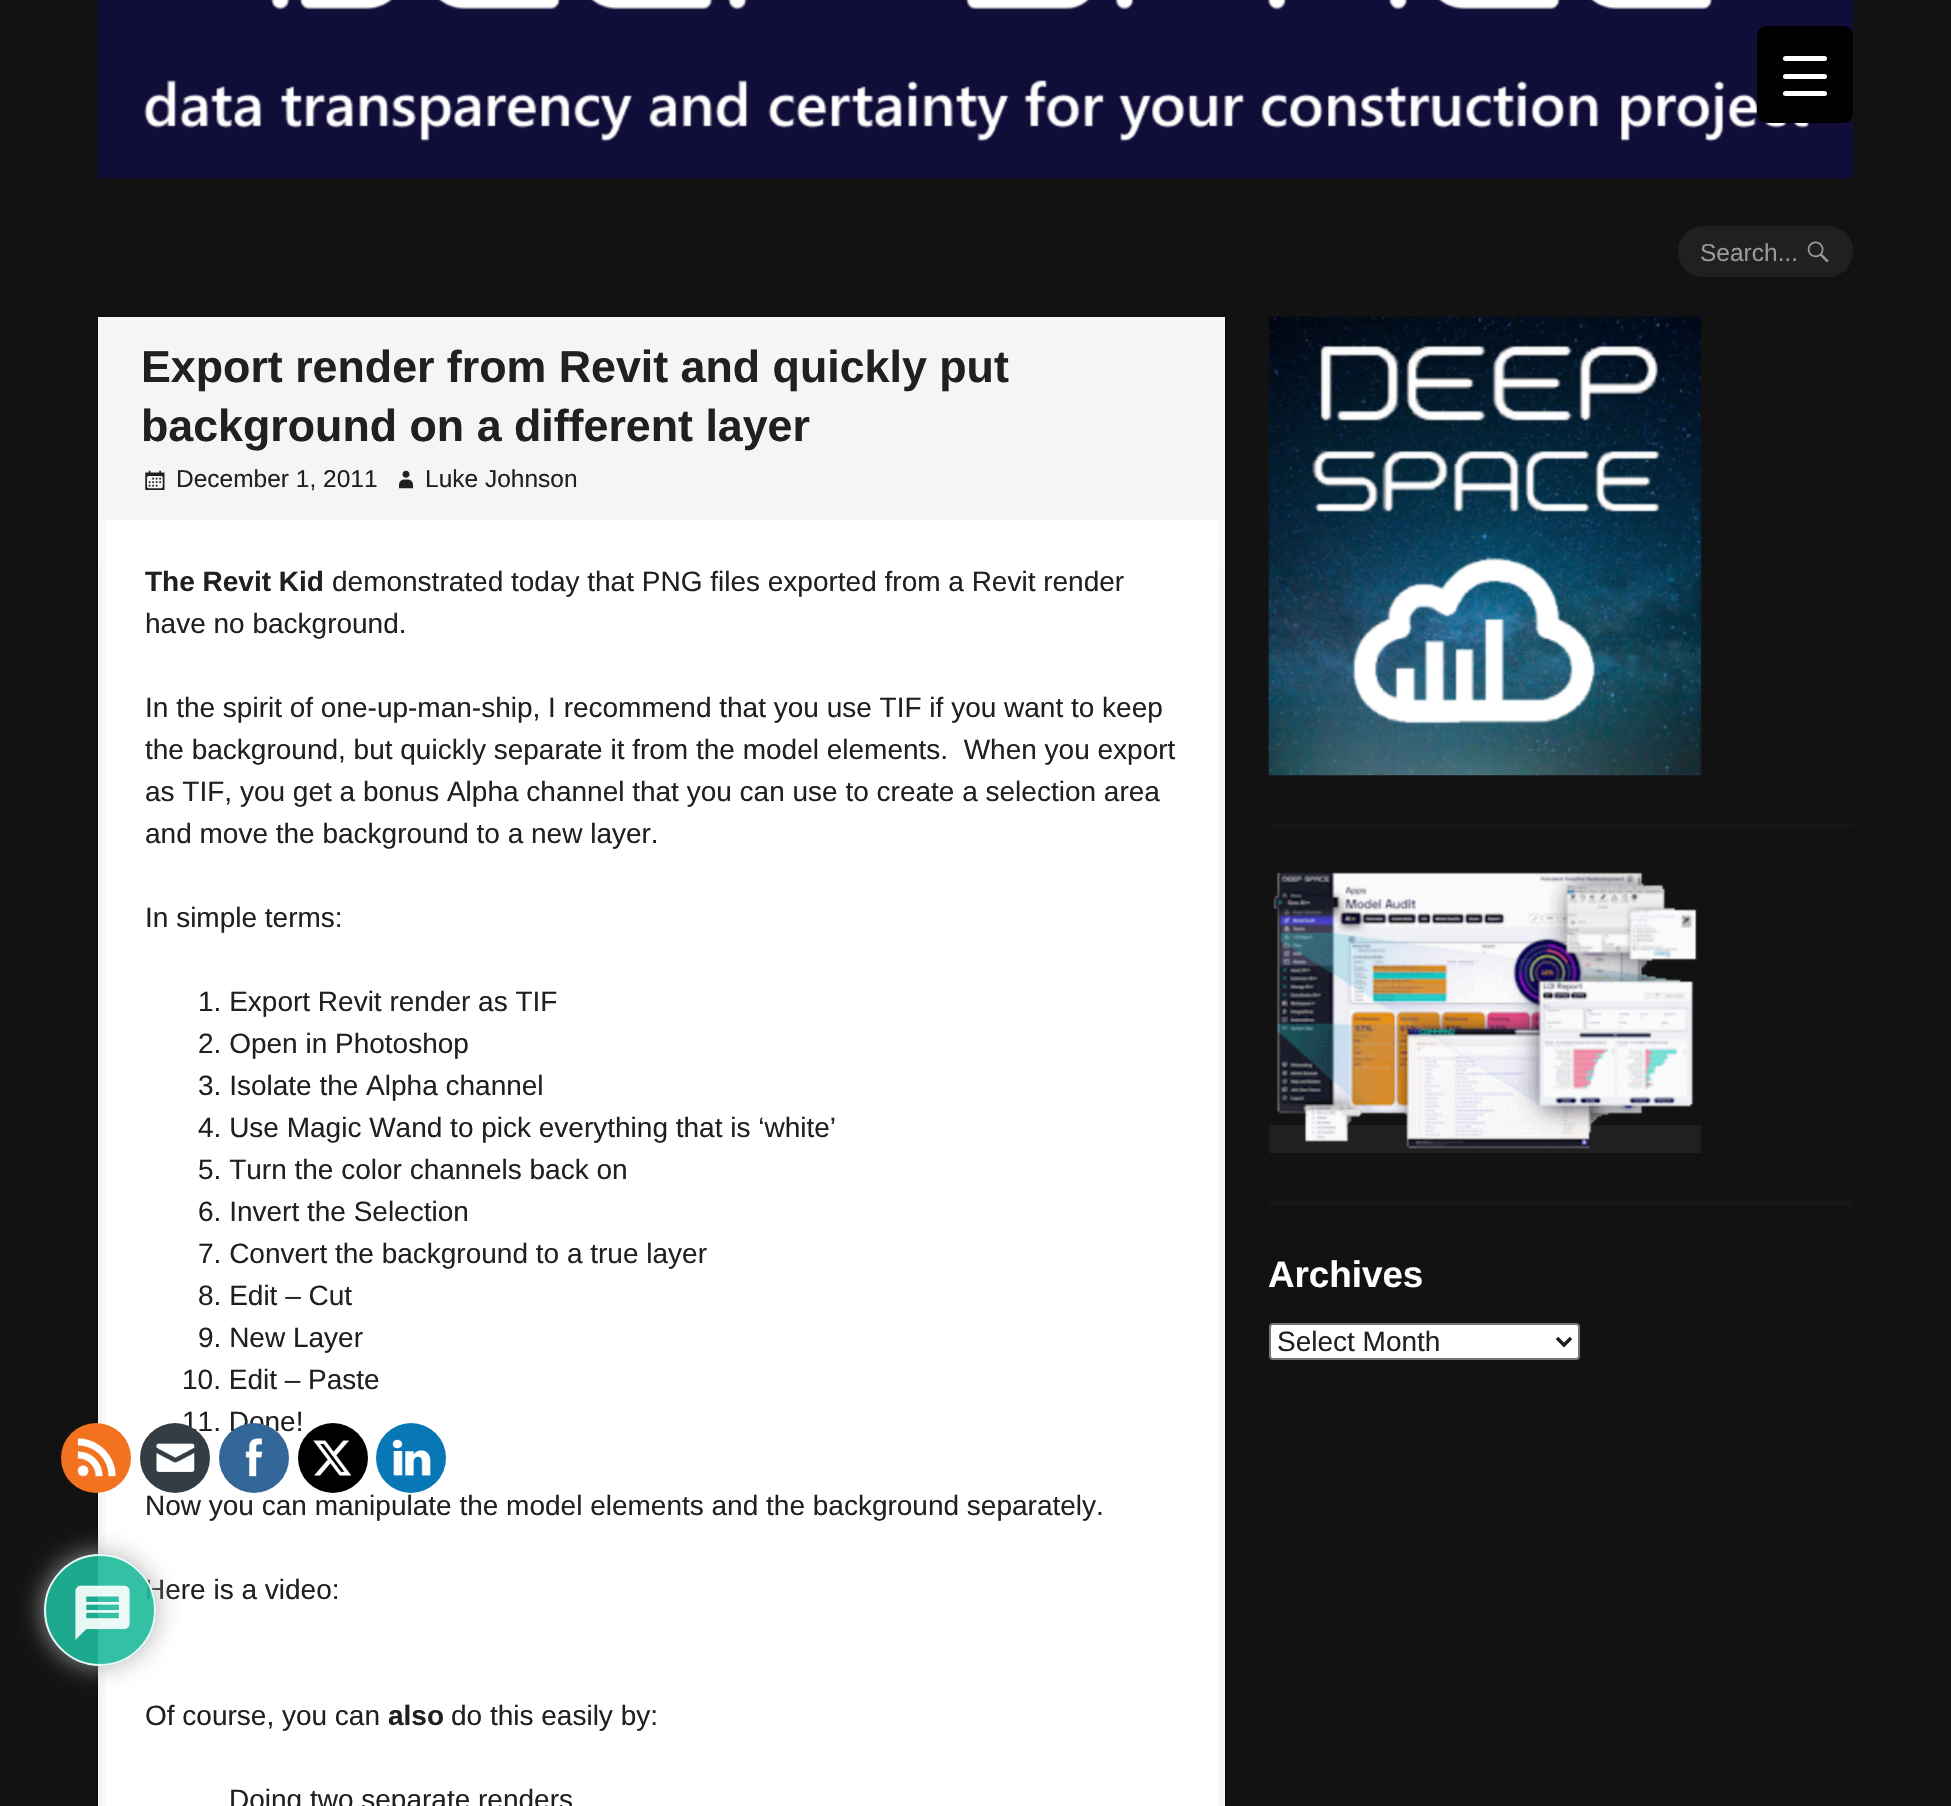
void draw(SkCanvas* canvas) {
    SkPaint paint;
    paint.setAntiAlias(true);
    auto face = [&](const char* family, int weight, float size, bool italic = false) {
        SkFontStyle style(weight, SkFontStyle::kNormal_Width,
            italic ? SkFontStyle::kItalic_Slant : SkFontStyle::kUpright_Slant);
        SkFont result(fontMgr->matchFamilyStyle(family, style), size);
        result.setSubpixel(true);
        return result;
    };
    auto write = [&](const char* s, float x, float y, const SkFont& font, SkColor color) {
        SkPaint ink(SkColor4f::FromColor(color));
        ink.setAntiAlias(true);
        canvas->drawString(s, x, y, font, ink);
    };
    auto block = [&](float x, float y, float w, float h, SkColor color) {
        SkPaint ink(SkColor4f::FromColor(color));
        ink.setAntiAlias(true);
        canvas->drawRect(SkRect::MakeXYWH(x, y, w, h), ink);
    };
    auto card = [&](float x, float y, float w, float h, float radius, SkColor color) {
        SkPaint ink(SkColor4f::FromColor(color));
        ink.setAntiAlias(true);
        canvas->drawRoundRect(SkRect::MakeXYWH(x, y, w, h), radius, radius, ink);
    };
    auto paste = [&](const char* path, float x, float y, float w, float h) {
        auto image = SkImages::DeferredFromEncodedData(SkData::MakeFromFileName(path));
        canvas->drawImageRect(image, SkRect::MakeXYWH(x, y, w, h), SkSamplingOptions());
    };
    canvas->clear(SkColorSetRGB(18, 18, 18));
    paste("pic1.png", 97, 0, 1757, 179);
    card(1757, 26, 96, 97, 9, SK_ColorBLACK);
    card(1783, 74, 44, 5, 2.5f, SK_ColorWHITE);
    card(1783, 56, 44, 5, 2.5f, SK_ColorWHITE);
    card(1783, 91, 44, 5, 2.5f, SK_ColorWHITE);
    card(1678, 226, 175, 51, 25, SkColorSetRGB(32, 32, 32));
    auto kFont1 = face("Liberation Sans", 400, 24.5f);
    write("Search...", 1700, 261, kFont1, SkColorSetRGB(153, 153, 153));
    paste("pic2.png", 1807, 241, 22, 22);
    paint.setStyle(SkPaint::kStroke_Style);
    paint.setStrokeWidth(2);
    paint.setColor(SkColorSetRGB(14, 14, 14));
    canvas->drawRect(SkRect::MakeXYWH(97, 316, 1129, 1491), paint);
    block(105, 520, 1113, 1286, SK_ColorWHITE);
    paint.setStrokeWidth(7);
    paint.setColor(SkColorSetRGB(248, 248, 248));
    canvas->drawRect(SkRect::MakeXYWH(101.5f, 320.5f, 1120, 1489), paint);
    block(98, 317, 1127, 203, SkColorSetRGB(245, 245, 245));
    auto kFont2 = face("Liberation Sans", 700, 44.75f);
    write("Export render from Revit and quickly put", 141, 382, kFont2, SkColorSetRGB(32, 32, 32));
    write("background on a different layer", 141, 441, kFont2, SkColorSetRGB(32, 32, 32));
    paste("pic3.png", 145, 470, 20, 20);
    write("December 1, 2011", 176, 487, kFont1, SkColorSetRGB(32, 32, 32));
    paste("pic4.png", 399, 470, 14, 19);
    write("Luke Johnson", 425, 487, kFont1, SkColorSetRGB(32, 32, 32));
    paint.setStyle(SkPaint::kFill_Style);
    paint.setColor(SkColorSetRGB(245, 245, 245));
    canvas->drawPath(SkPathBuilder().moveTo(1225, 562).lineTo(1225, 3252).lineTo(1222, 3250).lineTo(1222, 562).close().detach(), paint);
    canvas->drawPath(SkPathBuilder().moveTo(98, 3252).lineTo(98, 562).lineTo(102, 562).lineTo(102, 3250).close().detach(), paint);
    auto kFont3 = face("Liberation Sans", 700, 28);
    write("The Revit Kid", 145, 591, kFont3, SkColorSetRGB(32, 32, 32));
    auto kFont4 = face("Liberation Sans", 400, 28);
    write("demonstrated today that PNG files exported from a Revit render", 332, 591, kFont4, SkColorSetRGB(32, 32, 32));
    write("have no background.", 145, 633, kFont4, SkColorSetRGB(32, 32, 32));
    write("In the spirit of one-up-man-ship, I recommend that you use TIF if you want to keep", 145, 717, kFont4, SkColorSetRGB(32, 32, 32));
    write("the background, but quickly separate it from the model elements.  When you export", 145, 759, kFont4, SkColorSetRGB(32, 32, 32));
    write("as TIF, you get a bonus Alpha channel that you can use to create a selection area", 145, 801, kFont4, SkColorSetRGB(32, 32, 32));
    write("and move the background to a new layer.", 145, 843, kFont4, SkColorSetRGB(32, 32, 32));
    write("In simple terms:", 145, 927, kFont4, SkColorSetRGB(32, 32, 32));
    write("1. Export Revit render as TIF", 198, 1011, kFont4, SkColorSetRGB(32, 32, 32));
    write("2. Open in Photoshop", 198, 1053, kFont4, SkColorSetRGB(32, 32, 32));
    write("3. Isolate the Alpha channel", 198, 1095, kFont4, SkColorSetRGB(32, 32, 32));
    write("4. Use Magic Wand to pick everything that is ‘white’", 198, 1137, kFont4, SkColorSetRGB(32, 32, 32));
    write("5. Turn the color channels back on", 198, 1179, kFont4, SkColorSetRGB(32, 32, 32));
    write("6. Invert the Selection", 198, 1221, kFont4, SkColorSetRGB(32, 32, 32));
    write("7. Convert the background to a true layer", 198, 1263, kFont4, SkColorSetRGB(32, 32, 32));
    write("8. Edit – Cut", 198, 1305, kFont4, SkColorSetRGB(32, 32, 32));
    write("9. New Layer", 198, 1347, kFont4, SkColorSetRGB(32, 32, 32));
    write("10. Edit – Paste", 182, 1389, kFont4, SkColorSetRGB(32, 32, 32));
    write("11. Done!", 182, 1431, kFont4, SkColorSetRGB(32, 32, 32));
    write("Now you can manipulate the model elements and the background separately.", 145, 1515, kFont4, SkColorSetRGB(32, 32, 32));
    write("Here is a video:", 145, 1599, kFont4, SkColorSetRGB(32, 32, 32));
    write("Of course, you can", 145, 1725, kFont4, SkColorSetRGB(32, 32, 32));
    write("also", 388, 1725, kFont3, SkColorSetRGB(32, 32, 32));
    write("do this easily by:", 451, 1725, kFont4, SkColorSetRGB(32, 32, 32));
    write("Doing two separate renders", 229, 1809, kFont4, SkColorSetRGB(32, 32, 32));
    block(1269, 823, 584, 4, SkColorSetRGB(23, 23, 23));
    paste("pic5.png", 1268, 316, 434, 460);
    block(1269, 1201, 584, 4, SkColorSetRGB(23, 23, 23));
    block(1269, 1125, 432, 28, SkColorSetRGB(32, 32, 32));
    paste("pic6.png", 1273, 872, 424, 277);
    auto kFont5 = face("Liberation Sans", 700, 36.75f);
    write("Archives", 1268, 1287, kFont5, SK_ColorWHITE);
    paint.setColor(SK_ColorWHITE);
    canvas->drawRoundRect(SkRect::MakeXYWH(1270, 1324, 309, 35), 3, 3, paint);
    paint.setStyle(SkPaint::kStroke_Style);
    paint.setStrokeWidth(2);
    paint.setColor(SkColorSetRGB(118, 118, 118));
    canvas->drawRoundRect(SkRect::MakeXYWH(1270, 1324, 309, 35), 3, 3, paint);
    paint.setStrokeWidth(3.5f);
    paint.setColor(SkColorSetRGB(32, 32, 32));
    canvas->drawPath(SkPathBuilder().moveTo(1557, 1338).lineTo(1564, 1345).lineTo(1571, 1338).detach(), paint);
    write("Select Month", 1277, 1351, kFont4, SkColorSetRGB(32, 32, 32));
    paint.setStyle(SkPaint::kFill_Style);
    paint.setColor(SkColorSetRGB(242, 114, 31));
    canvas->drawCircle(96, 1458, 35, paint);
    paste("pic7.png", 77, 1438, 39, 39);
    paint.setColor(SkColorSetRGB(52, 61, 68));
    canvas->drawCircle(175, 1458, 35, paint);
    paste("pic8.png", 156, 1443, 39, 29);
    paint.setColor(SkColorSetRGB(51, 102, 153));
    canvas->drawCircle(254, 1458, 35, paint);
    paste("pic9.png", 245, 1438, 18, 39);
    paint.setColor(SK_ColorBLACK);
    canvas->drawCircle(333, 1458, 35, paint);
    paste("pic10.png", 313, 1440, 39, 36);
    paint.setColor(SkColorSetRGB(8, 119, 181));
    canvas->drawCircle(411, 1458, 35, paint);
    paste("pic11.png", 392, 1439, 39, 37);
    canvas->save();
    canvas->clipPath(SkPathBuilder(SkPathFillType::kEvenOdd).moveTo(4, 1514).lineTo(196, 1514).lineTo(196, 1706).lineTo(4, 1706).close().moveTo(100, 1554).cubicTo(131, 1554, 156, 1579, 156, 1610).cubicTo(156, 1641, 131, 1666, 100, 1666).cubicTo(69, 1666, 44, 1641, 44, 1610).cubicTo(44, 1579, 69, 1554, 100, 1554).close().detach(), true);
    paint.setColor(SkColorSetARGB(230, 170, 170, 170));
    paint.setMaskFilter(SkMaskFilter::MakeBlur(kNormal_SkBlurStyle, 13));
    canvas->drawRoundRect(SkRect::MakeXYWH(44, 1554, 112, 112), 56, 56, paint);
    paint.setMaskFilter(nullptr);
    canvas->restore();
    paint.setColor(SkColorSetARGB(230, 29, 185, 154));
    canvas->drawCircle(100, 1610, 56, paint);
    paint.setStyle(SkPaint::kStroke_Style);
    paint.setStrokeWidth(2);
    paint.setColor(SkColorSetARGB(230, 255, 255, 255));
    canvas->drawCircle(100, 1610, 55, paint);
    paste("pic12.png", 75, 1585, 55, 55);
}
